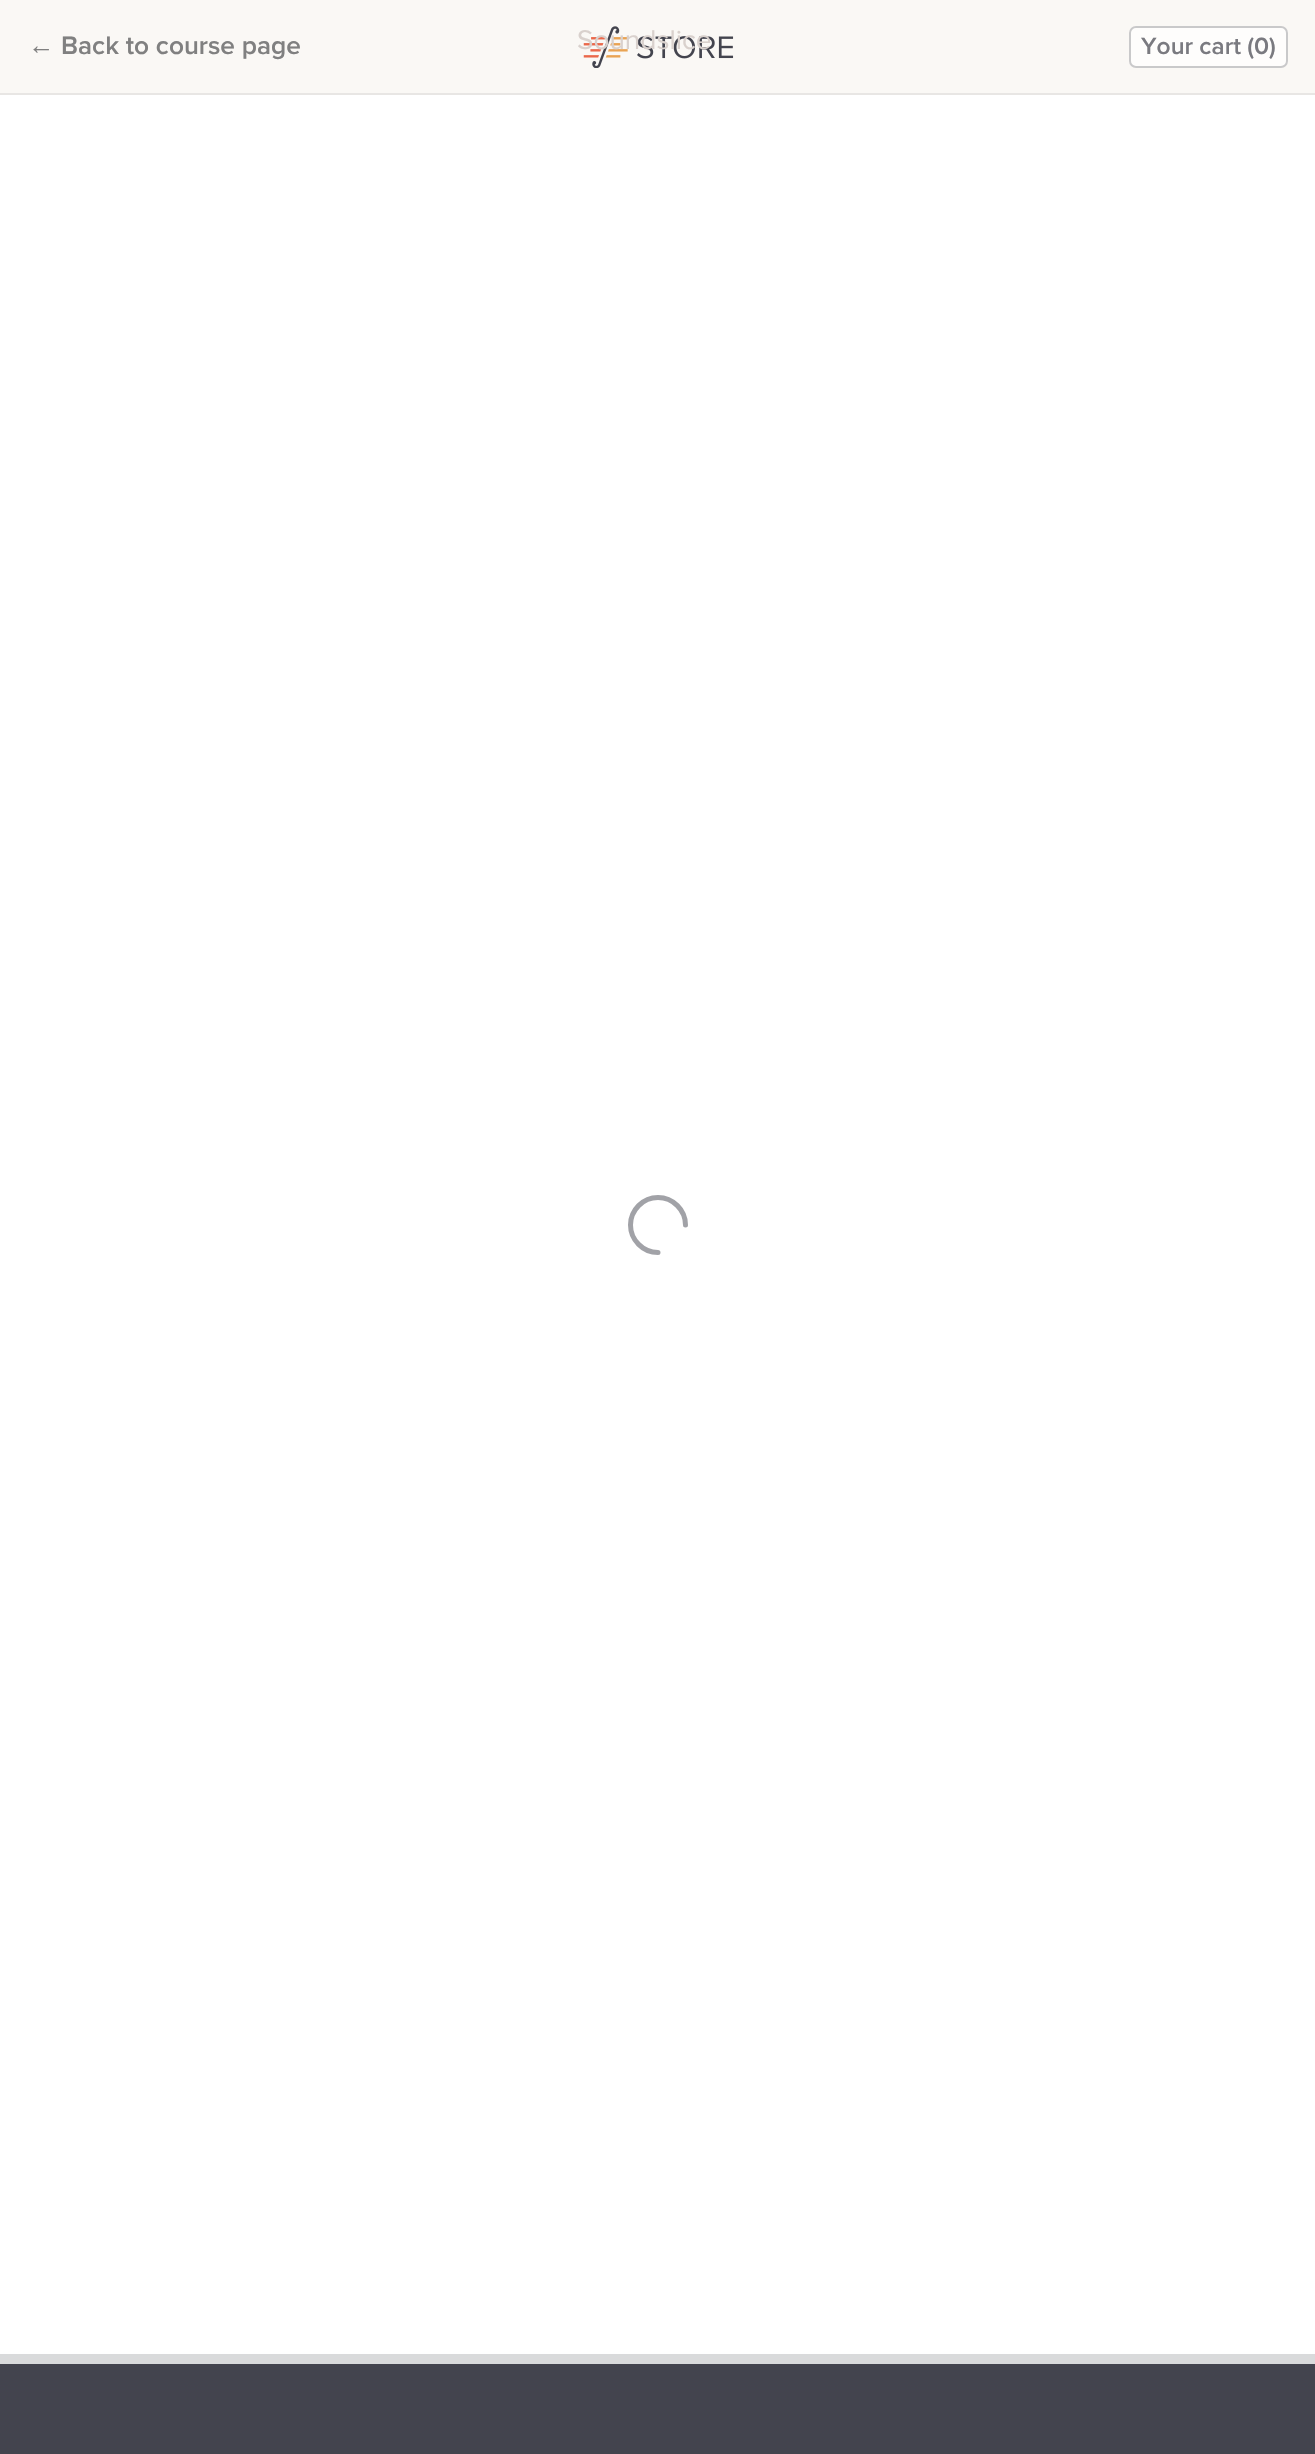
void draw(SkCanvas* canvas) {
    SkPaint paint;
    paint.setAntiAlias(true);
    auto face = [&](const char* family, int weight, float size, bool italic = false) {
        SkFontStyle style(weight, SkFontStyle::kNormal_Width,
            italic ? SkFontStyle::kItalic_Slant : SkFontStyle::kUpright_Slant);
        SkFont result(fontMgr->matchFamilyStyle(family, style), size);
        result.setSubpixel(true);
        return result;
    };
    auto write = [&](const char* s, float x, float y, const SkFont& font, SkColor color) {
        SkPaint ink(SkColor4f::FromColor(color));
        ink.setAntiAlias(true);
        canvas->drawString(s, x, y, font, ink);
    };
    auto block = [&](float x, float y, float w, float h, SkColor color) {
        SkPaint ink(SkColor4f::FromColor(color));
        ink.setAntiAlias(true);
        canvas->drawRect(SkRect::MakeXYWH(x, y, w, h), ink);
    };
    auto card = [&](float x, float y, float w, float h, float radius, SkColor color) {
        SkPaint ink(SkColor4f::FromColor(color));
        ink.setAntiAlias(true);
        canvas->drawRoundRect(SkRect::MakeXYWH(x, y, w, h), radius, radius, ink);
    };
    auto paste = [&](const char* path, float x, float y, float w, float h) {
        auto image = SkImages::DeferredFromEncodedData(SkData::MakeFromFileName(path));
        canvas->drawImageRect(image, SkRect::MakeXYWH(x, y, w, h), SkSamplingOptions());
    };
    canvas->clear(SK_ColorWHITE);
    block(0, 0, 1315, 93, SkColorSetRGB(250, 248, 245));
    block(0, 93, 1315, 2, SkColorSetRGB(232, 230, 228));
    auto kFont1 = face("Liberation Sans", 700, 26.25f);
    write("←", 28, 54, kFont1, SkColorSetRGB(128, 128, 128));
    auto kFont2 = face("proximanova", 400, 26.25f);
    write("Back to course page", 61, 54, kFont2, SkColorSetRGB(128, 128, 128));
    paste("pic1.png", 583, 26, 151, 42);
    auto kFont3 = face("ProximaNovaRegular", 400, 28);
    write("Soundslice", 577, 49, kFont3, SkColorSetRGB(217, 209, 205));
    card(1129, 26, 159, 42, 7, SkColorSetRGB(254, 253, 252));
    paint.setStyle(SkPaint::kStroke_Style);
    paint.setStrokeWidth(2);
    paint.setColor(SkColorSetARGB(102, 122, 122, 128));
    canvas->drawRoundRect(SkRect::MakeXYWH(1130, 27, 157, 40), 6, 6, paint);
    auto kFont4 = face("proximanova", 400, 24.5f);
    write("Your cart (0)", 1141, 54, kFont4, SkColorSetRGB(122, 122, 128));
    paint.setStrokeWidth(5);
    paint.setStrokeCap(SkPaint::kRound_Cap);
    paint.setStrokeJoin(SkPaint::kRound_Join);
    paint.setColor(SkColorSetRGB(161, 162, 167));
    canvas->drawPath(SkPathBuilder().moveTo(685.5f, 1225).cubicTo(685.5f, 1210, 673, 1197.5f, 658, 1197.5f).cubicTo(643, 1197.5f, 630.5f, 1210, 630.5f, 1225).cubicTo(630.5f, 1240, 643, 1252.5f, 658, 1252.5f).detach(), paint);
    block(0, 2364, 1315, 90, SkColorSetRGB(67, 68, 78));
    block(0, 2354, 1315, 10, SkColorSetRGB(217, 218, 219));
}
